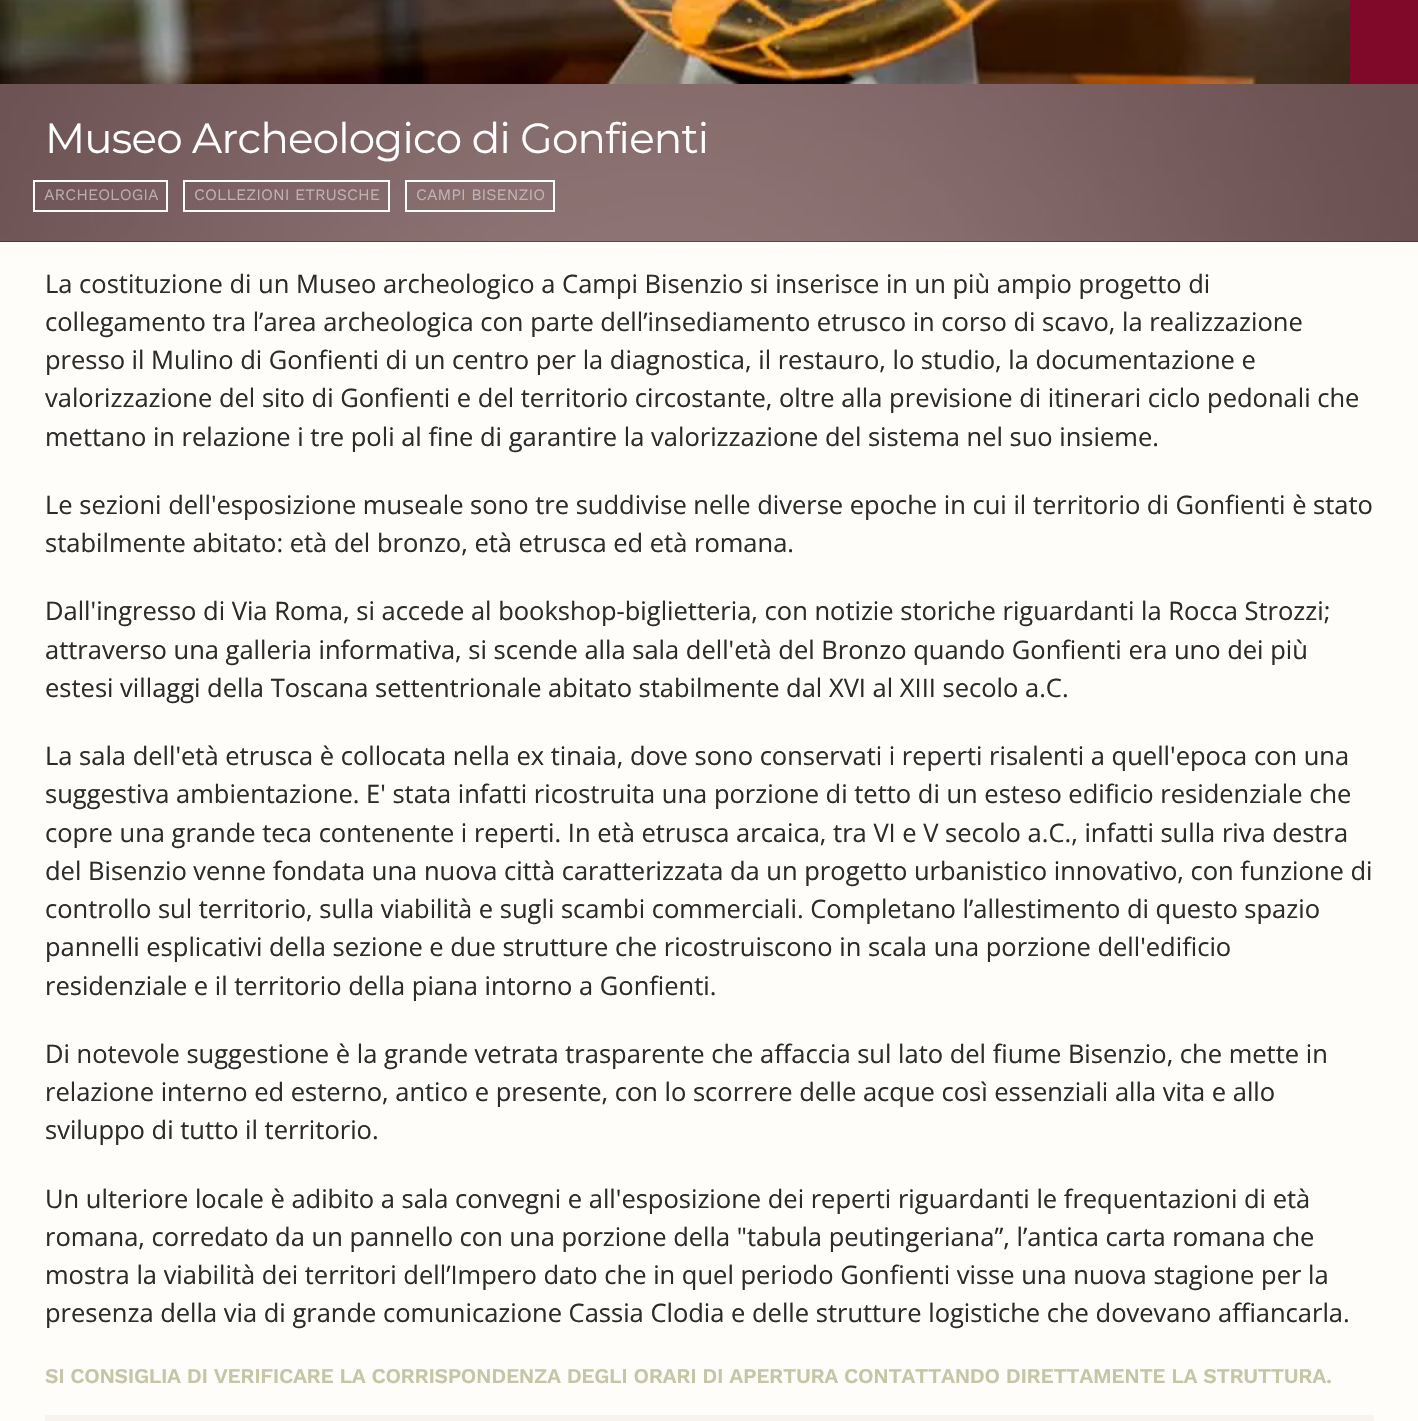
void draw(SkCanvas* canvas) {
    SkPaint paint;
    paint.setAntiAlias(true);
    auto face = [&](const char* family, int weight, float size, bool italic = false) {
        SkFontStyle style(weight, SkFontStyle::kNormal_Width,
            italic ? SkFontStyle::kItalic_Slant : SkFontStyle::kUpright_Slant);
        SkFont result(fontMgr->matchFamilyStyle(family, style), size);
        result.setSubpixel(true);
        return result;
    };
    auto write = [&](const char* s, float x, float y, const SkFont& font, SkColor color) {
        SkPaint ink(SkColor4f::FromColor(color));
        ink.setAntiAlias(true);
        canvas->drawString(s, x, y, font, ink);
    };
    auto writeSpaced = [&](const char* s, float x, float y, const SkFont& font, const SkPaint& ink, float letter, float word) {
        std::vector<SkGlyphID> glyphs(font.countText(s, strlen(s), SkTextEncoding::kUTF8));
        std::vector<float> xs(glyphs.size());
        font.textToGlyphs(s, strlen(s), SkTextEncoding::kUTF8, glyphs);
        font.getXPos(glyphs, xs, x);
        float extra = 0;
        for (size_t i = 0; i < glyphs.size(); i++) {
            xs[i] += extra;
            extra += letter + word * (glyphs[i] == font.unicharToGlyph(' '));
        }
        canvas->drawTextBlob(SkTextBlob::MakeFromPosHGlyphs(glyphs, xs, y, font), 0, 0, ink);
    };
    auto block = [&](float x, float y, float w, float h, SkColor color) {
        SkPaint ink(SkColor4f::FromColor(color));
        ink.setAntiAlias(true);
        canvas->drawRect(SkRect::MakeXYWH(x, y, w, h), ink);
    };
    auto paste = [&](const char* path, float x, float y, float w, float h) {
        auto image = SkImages::DeferredFromEncodedData(SkData::MakeFromFileName(path));
        canvas->drawImageRect(image, SkRect::MakeXYWH(x, y, w, h), SkSamplingOptions());
    };
    canvas->clear(SkColorSetRGB(255, 253, 250));
    block(1350, 0, 68, 84, SkColorSetRGB(128, 8, 41));
    paste("pic1.png", 0, 0, 1350, 84);
    block(0, 241, 1418, 1, SkColorSetRGB(46, 20, 21));
    paste("pic2.png", 0, 84, 1418, 158);
    auto kFont1 = face("Montserrat", 400, 42);
    paint.setColor(SK_ColorWHITE);
    writeSpaced("Museo Archeologico di Gonfienti", 45, 153, kFont1, paint, -0.75f, 0);
    paint.setStyle(SkPaint::kStroke_Style);
    paint.setStrokeWidth(2);
    paint.setColor(SkColorSetRGB(255, 255, 250));
    canvas->drawRect(SkRect::MakeXYWH(34, 181, 133, 30), paint);
    auto kFont2 = face("Work Sans", 400, 16);
    write("ARCHEOLOGIA", 44, 200, kFont2, SkColorSetRGB(186, 173, 173));
    canvas->drawRect(SkRect::MakeXYWH(184, 181, 205, 30), paint);
    write("COLLEZIONI ETRUSCHE", 194, 200, kFont2, SkColorSetRGB(192, 178, 179));
    canvas->drawRect(SkRect::MakeXYWH(406, 181, 148, 30), paint);
    write("CAMPI BISENZIO", 416, 200, kFont2, SkColorSetRGB(192, 178, 179));
    auto kFont3 = face("Open Sans", 400, 25.5f);
    write("La costituzione di un Museo archeologico a Campi Bisenzio si inserisce in un più ampio progetto di", 45, 293, kFont3, SkColorSetRGB(44, 44, 44));
    write("collegamento tra l’area archeologica con parte dell’insediamento etrusco in corso di scavo, la realizzazione", 45, 331, kFont3, SkColorSetRGB(44, 44, 44));
    write("presso il Mulino di Gonfienti di un centro per la diagnostica, il restauro, lo studio, la documentazione e", 45, 369, kFont3, SkColorSetRGB(44, 44, 44));
    write("valorizzazione del sito di Gonfienti e del territorio circostante, oltre alla previsione di itinerari ciclo pedonali che", 45, 407, kFont3, SkColorSetRGB(44, 44, 44));
    write("mettano in relazione i tre poli al fine di garantire la valorizzazione del sistema nel suo insieme.", 45, 446, kFont3, SkColorSetRGB(44, 44, 44));
    write("Le sezioni dell'esposizione museale sono tre suddivise nelle diverse epoche in cui il territorio di Gonfienti è stato", 45, 514, kFont3, SkColorSetRGB(44, 44, 44));
    write("stabilmente abitato: età del bronzo, età etrusca ed età romana.", 45, 552, kFont3, SkColorSetRGB(44, 44, 44));
    write("Dall'ingresso di Via Roma, si accede al bookshop-biglietteria, con notizie storiche riguardanti la Rocca Strozzi;", 45, 620, kFont3, SkColorSetRGB(44, 44, 44));
    write("attraverso una galleria informativa, si scende alla sala dell'età del Bronzo quando Gonfienti era uno dei più", 45, 659, kFont3, SkColorSetRGB(44, 44, 44));
    write("estesi villaggi della Toscana settentrionale abitato stabilmente dal XVI al XIII secolo a.C.", 45, 697, kFont3, SkColorSetRGB(44, 44, 44));
    write("La sala dell'età etrusca è collocata nella ex tinaia, dove sono conservati i reperti risalenti a quell'epoca con una", 45, 765, kFont3, SkColorSetRGB(44, 44, 44));
    write("suggestiva ambientazione. E' stata infatti ricostruita una porzione di tetto di un esteso edificio residenziale che", 45, 803, kFont3, SkColorSetRGB(44, 44, 44));
    write("copre una grande teca contenente i reperti. In età etrusca arcaica, tra VI e V secolo a.C., infatti sulla riva destra", 45, 842, kFont3, SkColorSetRGB(44, 44, 44));
    write("del Bisenzio venne fondata una nuova città caratterizzata da un progetto urbanistico innovativo, con funzione di", 45, 880, kFont3, SkColorSetRGB(44, 44, 44));
    write("controllo sul territorio, sulla viabilità e sugli scambi commerciali. Completano l’allestimento di questo spazio", 45, 918, kFont3, SkColorSetRGB(44, 44, 44));
    write("pannelli esplicativi della sezione e due strutture che ricostruiscono in scala una porzione dell'edificio", 45, 956, kFont3, SkColorSetRGB(44, 44, 44));
    write("residenziale e il territorio della piana intorno a Gonfienti.", 45, 995, kFont3, SkColorSetRGB(44, 44, 44));
    write("Di notevole suggestione è la grande vetrata trasparente che affaccia sul lato del fiume Bisenzio, che mette in", 45, 1063, kFont3, SkColorSetRGB(44, 44, 44));
    write("relazione interno ed esterno, antico e presente, con lo scorrere delle acque così essenziali alla vita e allo", 45, 1101, kFont3, SkColorSetRGB(44, 44, 44));
    write("sviluppo di tutto il territorio.", 45, 1139, kFont3, SkColorSetRGB(44, 44, 44));
    write("Un ulteriore locale è adibito a sala convegni e all'esposizione dei reperti riguardanti le frequentazioni di età", 45, 1208, kFont3, SkColorSetRGB(44, 44, 44));
    write("romana, corredato da un pannello con una porzione della \"tabula peutingeriana”, l’antica carta romana che", 45, 1246, kFont3, SkColorSetRGB(44, 44, 44));
    write("mostra la viabilità dei territori dell’Impero dato che in quel periodo Gonfienti visse una nuova stagione per la", 45, 1284, kFont3, SkColorSetRGB(44, 44, 44));
    write("presenza della via di grande comunicazione Cassia Clodia e delle strutture logistiche che dovevano affiancarla.", 45, 1322, kFont3, SkColorSetRGB(44, 44, 44));
    auto kFont4 = face("Work Sans", 600, 21);
    paint.setStyle(SkPaint::kFill_Style);
    paint.setColor(SkColorSetRGB(197, 197, 167));
    writeSpaced("SI CONSIGLIA DI VERIFICARE LA CORRISPONDENZA DEGLI ORARI DI APERTURA CONTATTANDO DIRETTAMENTE LA STRUTTURA.", 45, 1383, kFont4, paint, -0.38f, 0);
    block(45, 1415, 1329, 6, SkColorSetRGB(248, 244, 237));
}
